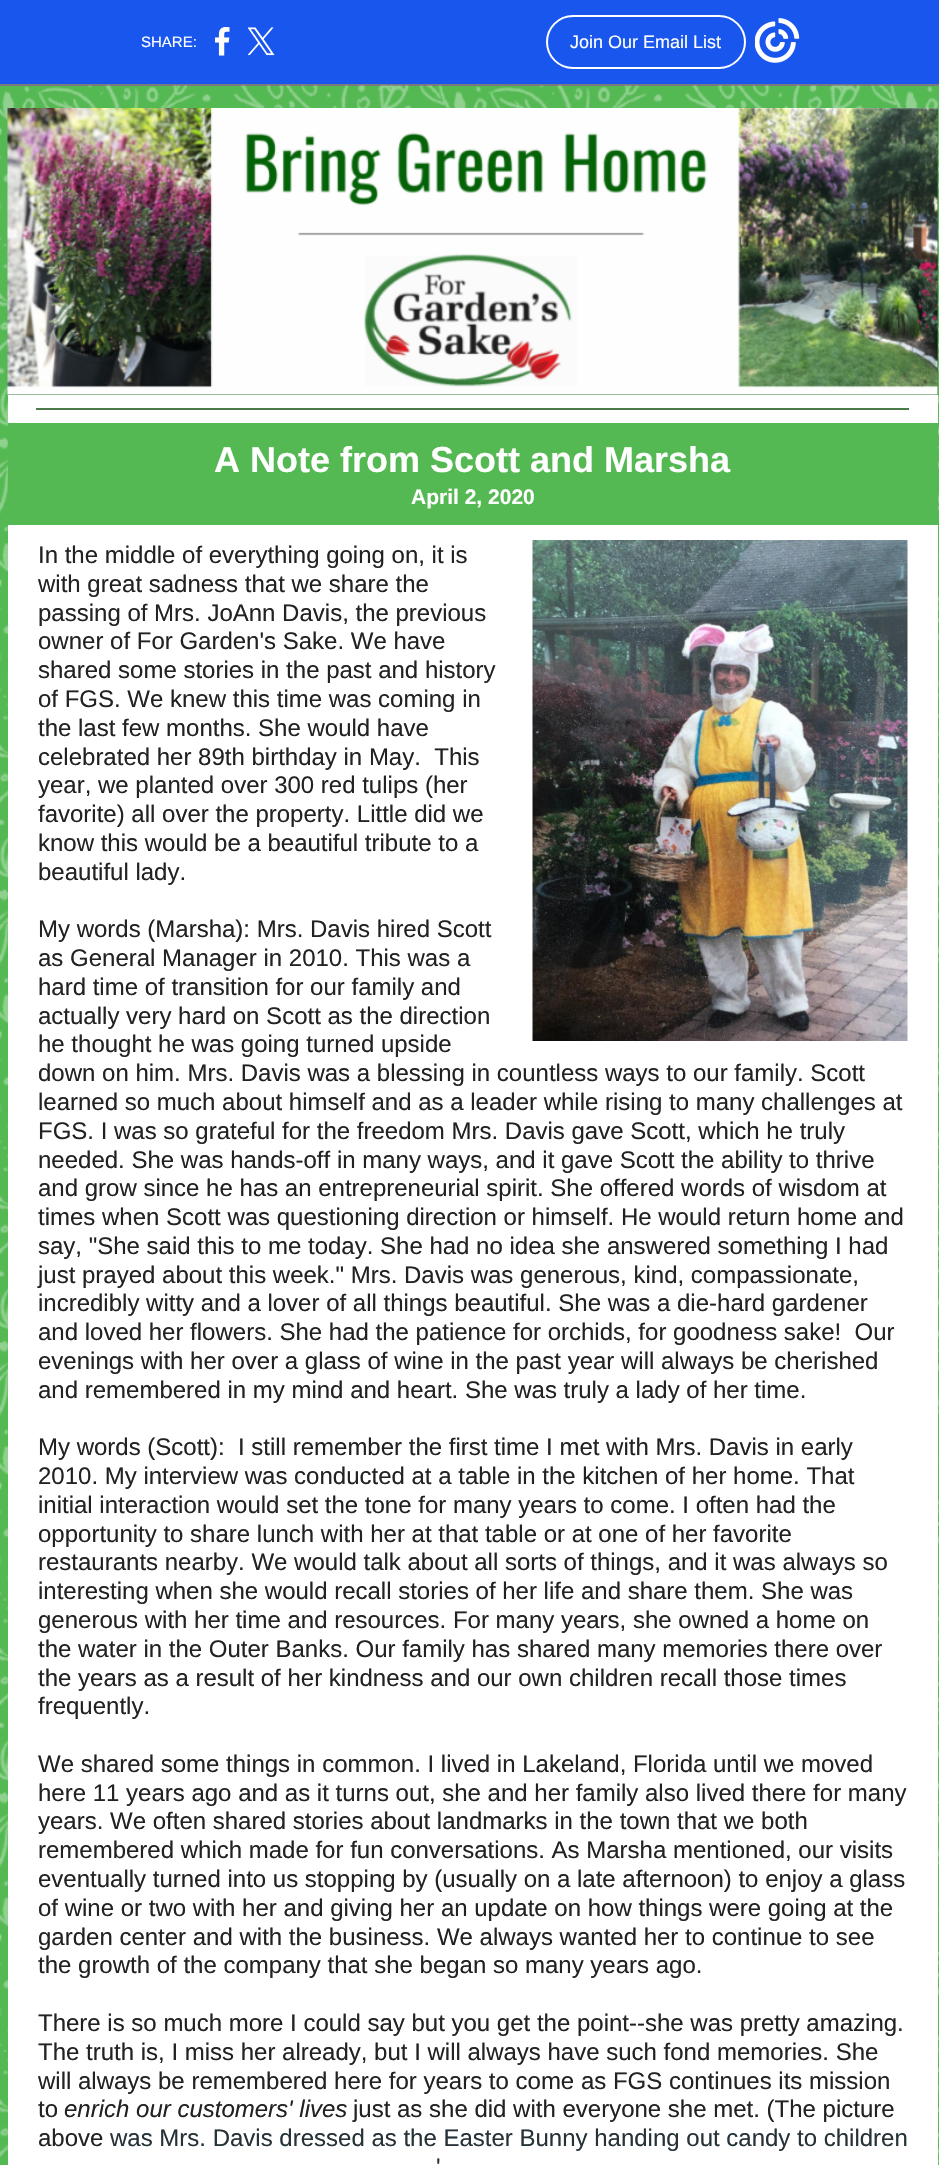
void draw(SkCanvas* canvas) {
    SkPaint paint;
    paint.setAntiAlias(true);
    auto face = [&](const char* family, int weight, float size, bool italic = false) {
        SkFontStyle style(weight, SkFontStyle::kNormal_Width,
            italic ? SkFontStyle::kItalic_Slant : SkFontStyle::kUpright_Slant);
        SkFont result(fontMgr->matchFamilyStyle(family, style), size);
        result.setSubpixel(true);
        return result;
    };
    auto write = [&](const char* s, float x, float y, const SkFont& font, SkColor color) {
        SkPaint ink(SkColor4f::FromColor(color));
        ink.setAntiAlias(true);
        canvas->drawString(s, x, y, font, ink);
    };
    auto block = [&](float x, float y, float w, float h, SkColor color) {
        SkPaint ink(SkColor4f::FromColor(color));
        ink.setAntiAlias(true);
        canvas->drawRect(SkRect::MakeXYWH(x, y, w, h), ink);
    };
    auto paste = [&](const char* path, float x, float y, float w, float h) {
        auto image = SkImages::DeferredFromEncodedData(SkData::MakeFromFileName(path));
        canvas->drawImageRect(image, SkRect::MakeXYWH(x, y, w, h), SkSamplingOptions());
    };
    canvas->clear(SkColorSetRGB(85, 185, 83));
    block(0, 0, 939, 84, SkColorSetRGB(24, 86, 237));
    block(0, 84, 939, 2, SkColorSetRGB(122, 122, 122));
    auto kFont1 = face("Liberation Sans", 400, 15);
    write("SHARE:", 141, 47, kFont1, SK_ColorWHITE);
    paste("pic1.png", 215, 27, 15, 29);
    paste("pic2.png", 248, 27, 27, 29);
    paint.setStyle(SkPaint::kStroke_Style);
    paint.setStrokeWidth(2);
    paint.setColor(SK_ColorWHITE);
    canvas->drawRoundRect(SkRect::MakeXYWH(547, 16, 198, 52), 26, 26, paint);
    auto kFont2 = face("Liberation Sans", 400, 18);
    write("Join Our Email List", 570, 48, kFont2, SK_ColorWHITE);
    paste("pic3.png", 755, 18, 45, 45);
    paste("pic4.png", 0, 85, 939, 2079);
    block(8, 395, 930, 1770, SK_ColorWHITE);
    block(8, 108, 930, 287, SkColorSetRGB(56, 123, 55));
    paste("pic5.png", 7, 108, 931, 287);
    block(36, 408, 873, 2, SkColorSetRGB(76, 123, 75));
    block(8, 423, 930, 102, SkColorSetRGB(85, 185, 83));
    auto kFont3 = face("Liberation Sans", 700, 36);
    write("A Note from Scott and Marsha", 214, 472, kFont3, SK_ColorWHITE);
    auto kFont4 = face("Liberation Sans", 700, 21);
    write("April 2, 2020", 411, 504, kFont4, SK_ColorWHITE);
    paste("pic6.png", 532, 540, 376, 501);
    auto kFont5 = face("Liberation Sans", 400, 24);
    write("In the middle of everything going on, it is", 38, 563, kFont5, SkColorSetRGB(34, 34, 34));
    write("with great sadness that we share the", 38, 592, kFont5, SkColorSetRGB(34, 34, 34));
    write("passing of Mrs. JoAnn Davis, the previous", 38, 621, kFont5, SkColorSetRGB(34, 34, 34));
    write("owner of For Garden's Sake. We have", 38, 649, kFont5, SkColorSetRGB(34, 34, 34));
    write("shared some stories in the past and history", 38, 678, kFont5, SkColorSetRGB(34, 34, 34));
    write("of FGS. We knew this time was coming in", 38, 707, kFont5, SkColorSetRGB(34, 34, 34));
    write("the last few months. She would have", 38, 736, kFont5, SkColorSetRGB(34, 34, 34));
    write("celebrated her 89th birthday in May.  This", 38, 765, kFont5, SkColorSetRGB(34, 34, 34));
    write("year, we planted over 300 red tulips (her", 38, 793, kFont5, SkColorSetRGB(34, 34, 34));
    write("favorite) all over the property. Little did we", 38, 822, kFont5, SkColorSetRGB(34, 34, 34));
    write("know this would be a beautiful tribute to a", 38, 851, kFont5, SkColorSetRGB(34, 34, 34));
    write("beautiful lady.", 38, 880, kFont5, SkColorSetRGB(34, 34, 34));
    write("My words (Marsha): Mrs. Davis hired Scott", 38, 937, kFont5, SkColorSetRGB(34, 34, 34));
    write("as General Manager in 2010. This was a", 38, 966, kFont5, SkColorSetRGB(34, 34, 34));
    write("hard time of transition for our family and", 38, 995, kFont5, SkColorSetRGB(34, 34, 34));
    write("actually very hard on Scott as the direction", 38, 1024, kFont5, SkColorSetRGB(34, 34, 34));
    write("he thought he was going turned upside", 38, 1052, kFont5, SkColorSetRGB(34, 34, 34));
    write("down on him. Mrs. Davis was a blessing in countless ways to our family. Scott", 38, 1081, kFont5, SkColorSetRGB(34, 34, 34));
    write("learned so much about himself and as a leader while rising to many challenges at", 38, 1110, kFont5, SkColorSetRGB(34, 34, 34));
    write("FGS. I was so grateful for the freedom Mrs. Davis gave Scott, which he truly", 38, 1139, kFont5, SkColorSetRGB(34, 34, 34));
    write("needed. She was hands-off in many ways, and it gave Scott the ability to thrive", 38, 1168, kFont5, SkColorSetRGB(34, 34, 34));
    write("and grow since he has an entrepreneurial spirit. She offered words of wisdom at", 38, 1196, kFont5, SkColorSetRGB(34, 34, 34));
    write("times when Scott was questioning direction or himself. He would return home and", 38, 1225, kFont5, SkColorSetRGB(34, 34, 34));
    write("say, \"She said this to me today. She had no idea she answered something I had", 38, 1254, kFont5, SkColorSetRGB(34, 34, 34));
    write("just prayed about this week.\" Mrs. Davis was generous, kind, compassionate,", 38, 1283, kFont5, SkColorSetRGB(34, 34, 34));
    write("incredibly witty and a lover of all things beautiful. She was a die-hard gardener", 38, 1311, kFont5, SkColorSetRGB(34, 34, 34));
    write("and loved her flowers. She had the patience for orchids, for goodness sake!  Our", 38, 1340, kFont5, SkColorSetRGB(34, 34, 34));
    write("evenings with her over a glass of wine in the past year will always be cherished", 38, 1369, kFont5, SkColorSetRGB(34, 34, 34));
    write("and remembered in my mind and heart. She was truly a lady of her time.", 38, 1398, kFont5, SkColorSetRGB(34, 34, 34));
    write("My words (Scott):  I still remember the first time I met with Mrs. Davis in early", 38, 1455, kFont5, SkColorSetRGB(34, 34, 34));
    write("2010. My interview was conducted at a table in the kitchen of her home. That", 38, 1484, kFont5, SkColorSetRGB(34, 34, 34));
    write("initial interaction would set the tone for many years to come. I often had the", 38, 1513, kFont5, SkColorSetRGB(34, 34, 34));
    write("opportunity to share lunch with her at that table or at one of her favorite", 38, 1542, kFont5, SkColorSetRGB(34, 34, 34));
    write("restaurants nearby. We would talk about all sorts of things, and it was always so", 38, 1570, kFont5, SkColorSetRGB(34, 34, 34));
    write("interesting when she would recall stories of her life and share them. She was", 38, 1599, kFont5, SkColorSetRGB(34, 34, 34));
    write("generous with her time and resources. For many years, she owned a home on", 38, 1628, kFont5, SkColorSetRGB(34, 34, 34));
    write("the water in the Outer Banks. Our family has shared many memories there over", 38, 1657, kFont5, SkColorSetRGB(34, 34, 34));
    write("the years as a result of her kindness and our own children recall those times", 38, 1686, kFont5, SkColorSetRGB(34, 34, 34));
    write("frequently.", 38, 1714, kFont5, SkColorSetRGB(34, 34, 34));
    write("We shared some things in common. I lived in Lakeland, Florida until we moved", 38, 1772, kFont5, SkColorSetRGB(34, 34, 34));
    write("here 11 years ago and as it turns out, she and her family also lived there for many", 38, 1801, kFont5, SkColorSetRGB(34, 34, 34));
    write("years. We often shared stories about landmarks in the town that we both", 38, 1829, kFont5, SkColorSetRGB(34, 34, 34));
    write("remembered which made for fun conversations. As Marsha mentioned, our visits", 38, 1858, kFont5, SkColorSetRGB(34, 34, 34));
    write("eventually turned into us stopping by (usually on a late afternoon) to enjoy a glass", 38, 1887, kFont5, SkColorSetRGB(34, 34, 34));
    write("of wine or two with her and giving her an update on how things were going at the", 38, 1916, kFont5, SkColorSetRGB(34, 34, 34));
    write("garden center and with the business. We always wanted her to continue to see", 38, 1945, kFont5, SkColorSetRGB(34, 34, 34));
    write("the growth of the company that she began so many years ago.", 38, 1973, kFont5, SkColorSetRGB(34, 34, 34));
    write("There is so much more I could say but you get the point--she was pretty amazing.", 38, 2031, kFont5, SkColorSetRGB(34, 34, 34));
    write("The truth is, I miss her already, but I will always have such fond memories. She", 38, 2060, kFont5, SkColorSetRGB(34, 34, 34));
    write("will always be remembered here for years to come as FGS continues its mission", 38, 2089, kFont5, SkColorSetRGB(34, 34, 34));
    write("to", 38, 2117, kFont5, SkColorSetRGB(34, 34, 34));
    auto kFont6 = face("Liberation Sans", 400, 24, true);
    write("enrich our customers' lives", 64, 2117, kFont6, SkColorSetRGB(34, 34, 34));
    write("just as she did with everyone she met. (The picture", 353, 2117, kFont5, SkColorSetRGB(34, 34, 34));
    write("above", 38, 2146, kFont5, SkColorSetRGB(34, 34, 34));
    write("was Mrs. Davis dressed as the Easter Bunny handing out candy to children", 110, 2146, kFont5, SkColorSetRGB(38, 50, 56));
    write("'", 436, 2175, kFont5, SkColorSetRGB(38, 50, 56));
}
